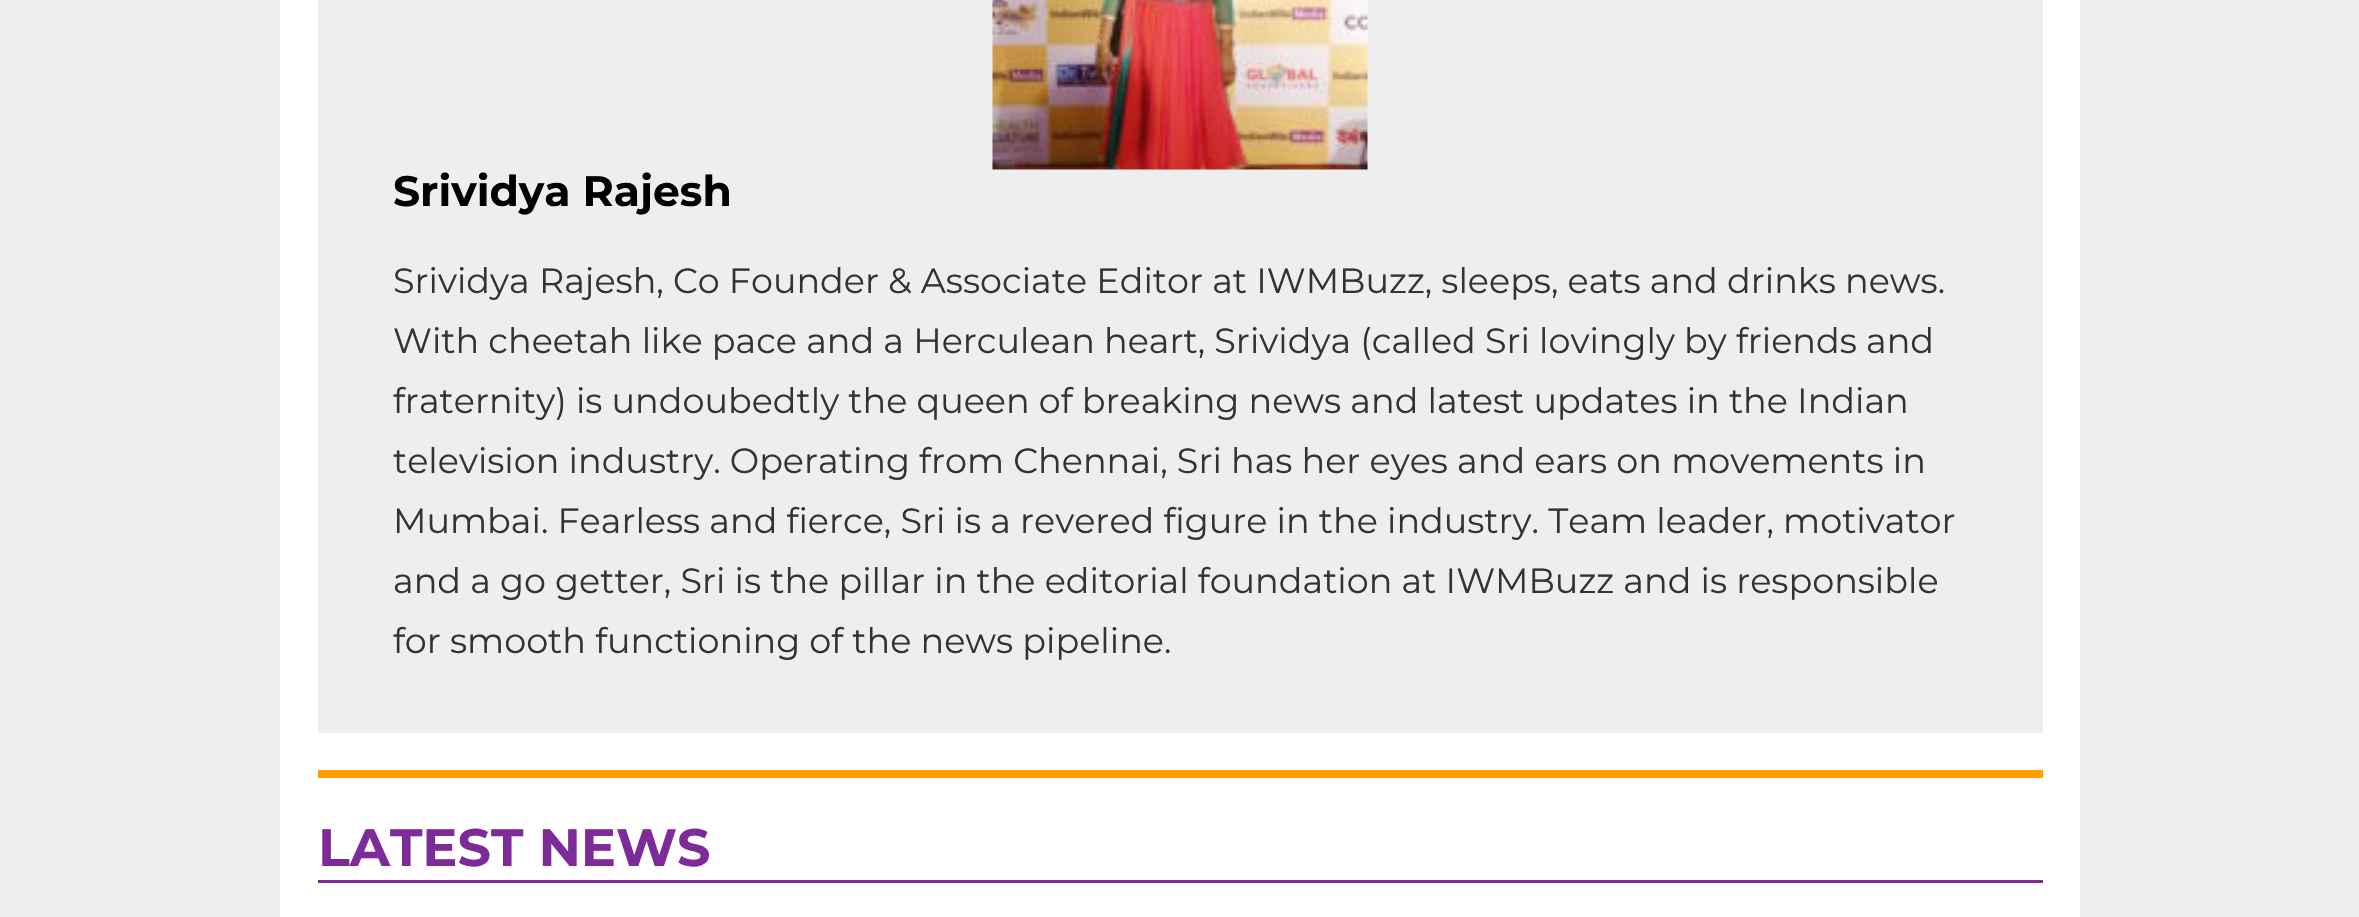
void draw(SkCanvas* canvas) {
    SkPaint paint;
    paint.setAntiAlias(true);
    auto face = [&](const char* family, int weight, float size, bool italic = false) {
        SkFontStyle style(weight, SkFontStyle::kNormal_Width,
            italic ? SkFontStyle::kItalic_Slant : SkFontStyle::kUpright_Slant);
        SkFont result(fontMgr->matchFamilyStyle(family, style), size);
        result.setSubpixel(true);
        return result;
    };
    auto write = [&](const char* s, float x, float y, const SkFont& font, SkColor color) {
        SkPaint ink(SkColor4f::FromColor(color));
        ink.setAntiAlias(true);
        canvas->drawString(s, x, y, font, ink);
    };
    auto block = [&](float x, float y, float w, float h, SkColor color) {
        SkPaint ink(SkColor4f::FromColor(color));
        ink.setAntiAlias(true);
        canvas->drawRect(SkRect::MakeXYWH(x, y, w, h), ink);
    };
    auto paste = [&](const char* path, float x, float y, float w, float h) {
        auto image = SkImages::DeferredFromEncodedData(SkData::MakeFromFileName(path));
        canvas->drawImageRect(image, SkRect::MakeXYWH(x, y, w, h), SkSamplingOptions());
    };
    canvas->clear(SkColorSetRGB(238, 238, 238));
    block(280, 0, 1800, 917, SK_ColorWHITE);
    block(318, 0, 1725, 733, SkColorSetRGB(238, 238, 238));
    paste("pic1.png", 992, 0, 376, 170);
    auto kFont1 = face("Montserrat", 700, 42.5f);
    write("Srividya Rajesh", 393, 206, kFont1, SK_ColorBLACK);
    auto kFont2 = face("Montserrat", 400, 35);
    write("Srividya Rajesh, Co Founder & Associate Editor at IWMBuzz, sleeps, eats and drinks news.", 393, 293, kFont2, SkColorSetRGB(51, 51, 51));
    write("With cheetah like pace and a Herculean heart, Srividya (called Sri lovingly by friends and", 393, 353, kFont2, SkColorSetRGB(51, 51, 51));
    write("fraternity) is undoubedtly the queen of breaking news and latest updates in the Indian", 393, 413, kFont2, SkColorSetRGB(51, 51, 51));
    write("television industry. Operating from Chennai, Sri has her eyes and ears on movements in", 393, 473, kFont2, SkColorSetRGB(51, 51, 51));
    write("Mumbai. Fearless and fierce, Sri is a revered figure in the industry. Team leader, motivator", 393, 533, kFont2, SkColorSetRGB(51, 51, 51));
    write("and a go getter, Sri is the pillar in the editorial foundation at IWMBuzz and is responsible", 393, 593, kFont2, SkColorSetRGB(51, 51, 51));
    write("for smooth functioning of the news pipeline.", 393, 653, kFont2, SkColorSetRGB(51, 51, 51));
    block(318, 770, 1725, 8, SkColorSetRGB(255, 160, 0));
    block(318, 880, 1725, 3, SkColorSetRGB(125, 43, 153));
    auto kFont3 = face("Montserrat", 700, 52.5f);
    write("LATEST NEWS", 318, 866, kFont3, SkColorSetRGB(125, 43, 153));
}
